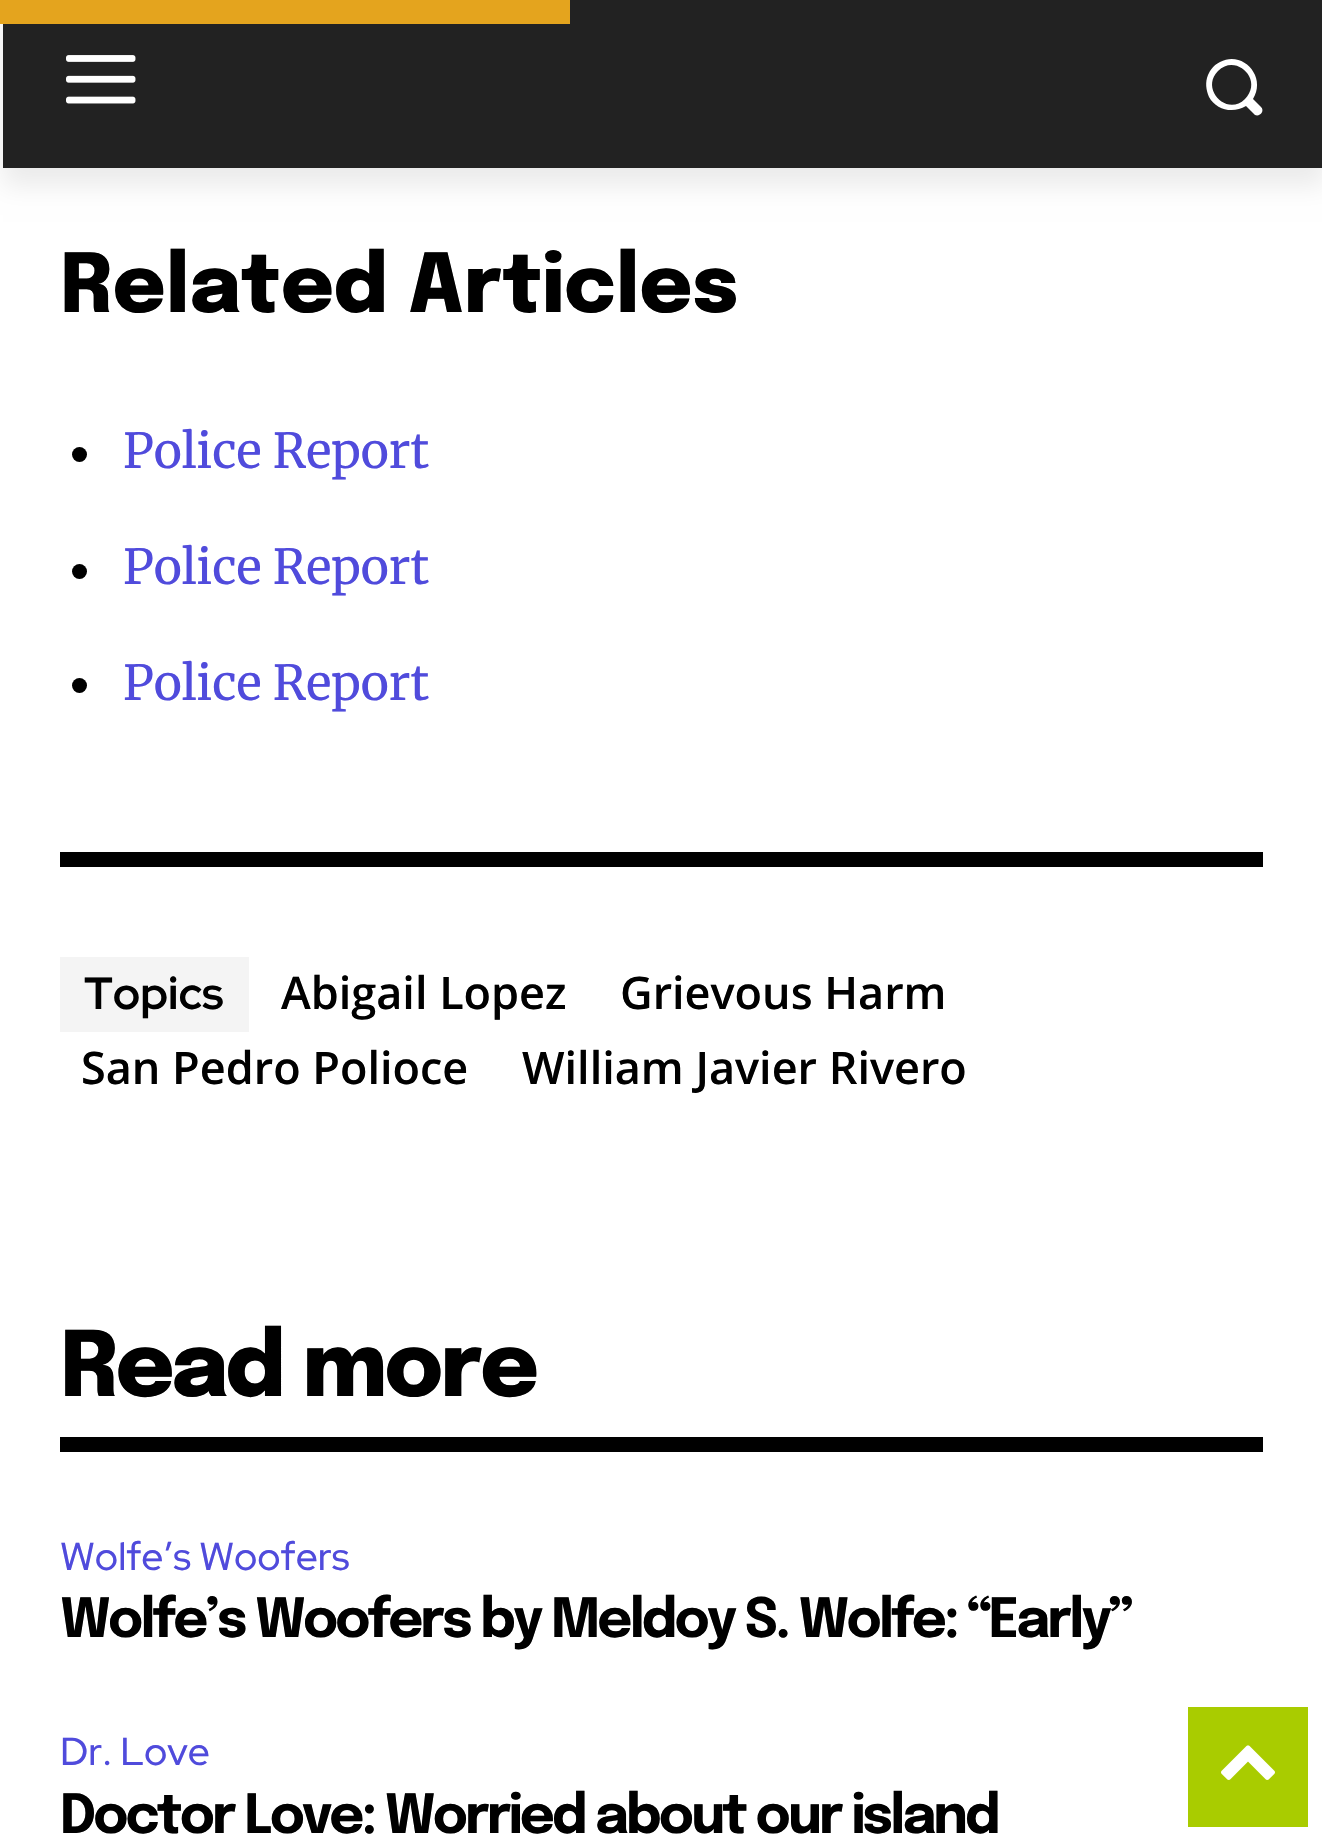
void draw(SkCanvas* canvas) {
    SkPaint paint;
    paint.setAntiAlias(true);
    auto face = [&](const char* family, int weight, float size, bool italic = false) {
        SkFontStyle style(weight, SkFontStyle::kNormal_Width,
            italic ? SkFontStyle::kItalic_Slant : SkFontStyle::kUpright_Slant);
        SkFont result(fontMgr->matchFamilyStyle(family, style), size);
        result.setSubpixel(true);
        return result;
    };
    auto write = [&](const char* s, float x, float y, const SkFont& font, SkColor color) {
        SkPaint ink(SkColor4f::FromColor(color));
        ink.setAntiAlias(true);
        canvas->drawString(s, x, y, font, ink);
    };
    auto writeSpaced = [&](const char* s, float x, float y, const SkFont& font, const SkPaint& ink, float letter, float word) {
        std::vector<SkGlyphID> glyphs(font.countText(s, strlen(s), SkTextEncoding::kUTF8));
        std::vector<float> xs(glyphs.size());
        font.textToGlyphs(s, strlen(s), SkTextEncoding::kUTF8, glyphs);
        font.getXPos(glyphs, xs, x);
        float extra = 0;
        for (size_t i = 0; i < glyphs.size(); i++) {
            xs[i] += extra;
            extra += letter + word * (glyphs[i] == font.unicharToGlyph(' '));
        }
        canvas->drawTextBlob(SkTextBlob::MakeFromPosHGlyphs(glyphs, xs, y, font), 0, 0, ink);
    };
    auto block = [&](float x, float y, float w, float h, SkColor color) {
        SkPaint ink(SkColor4f::FromColor(color));
        ink.setAntiAlias(true);
        canvas->drawRect(SkRect::MakeXYWH(x, y, w, h), ink);
    };
    auto paste = [&](const char* path, float x, float y, float w, float h) {
        auto image = SkImages::DeferredFromEncodedData(SkData::MakeFromFileName(path));
        canvas->drawImageRect(image, SkRect::MakeXYWH(x, y, w, h), SkSamplingOptions());
    };
    canvas->clear(SK_ColorWHITE);
    block(3, 0, 1319, 168, SkColorSetRGB(34, 34, 34));
    paste("pic1.png", 66, 55, 70, 49);
    paint.setColor(SK_ColorWHITE);
    canvas->drawPath(SkPathBuilder().moveTo(1261, 107).lineTo(1253, 99).cubicTo(1267, 77, 1243, 50, 1220, 62).cubicTo(1214, 65, 1210, 70, 1208, 75).cubicTo(1205, 82, 1206, 90, 1209, 97).cubicTo(1216, 110, 1233, 114, 1246, 106).lineTo(1255, 115).cubicTo(1260, 117, 1265, 111, 1261, 107).close().moveTo(1245, 99).cubicTo(1227, 117, 1200, 89, 1218, 71).cubicTo(1236, 53, 1264, 80, 1245, 99).close().detach(), paint);
    canvas->save();
    canvas->clipPath(SkPathBuilder(SkPathFillType::kEvenOdd).moveTo(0, 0).lineTo(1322, 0).lineTo(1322, 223).lineTo(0, 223).close().moveTo(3, 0).lineTo(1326, 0).lineTo(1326, 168).lineTo(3, 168).close().detach(), true);
    paint.setColor(SkColorSetARGB(20, 0, 0, 0));
    paint.setMaskFilter(SkMaskFilter::MakeBlur(kNormal_SkBlurStyle, 12));
    canvas->drawRect(SkRect::MakeXYWH(3, 18, 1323, 168), paint);
    paint.setMaskFilter(nullptr);
    canvas->restore();
    block(0, 0, 570, 24, SkColorSetRGB(228, 164, 30));
    auto kFont1 = face("Epilogue", 800, 81);
    write("Related Articles", 60, 312, kFont1, SK_ColorBLACK);
    paint.setColor(SK_ColorBLACK);
    canvas->drawCircle(79.5f, 454.5f, 7.5f, paint);
    auto kFont2 = face("Merriweather", 400, 48);
    write("Police Report", 123, 468, kFont2, SkColorSetRGB(80, 75, 220));
    canvas->drawCircle(79.5f, 571.5f, 7.5f, paint);
    write("Police Report", 123, 584, kFont2, SkColorSetRGB(80, 75, 220));
    canvas->drawCircle(79.5f, 685.5f, 7.5f, paint);
    write("Police Report", 123, 700, kFont2, SkColorSetRGB(80, 75, 220));
    block(60, 852, 1203, 15, SK_ColorBLACK);
    block(60, 957, 189, 75, SkColorSetRGB(244, 244, 244));
    auto kFont3 = face("Red Hat Display", 700, 45);
    write("Topics", 84, 1009, kFont3, SK_ColorBLACK);
    auto kFont4 = face("Open Sans", 600, 45);
    write("Abigail Lopez", 281, 1009, kFont4, SK_ColorBLACK);
    write("Grievous Harm", 620, 1009, kFont4, SK_ColorBLACK);
    write("San Pedro Polioce", 81, 1084, kFont4, SK_ColorBLACK);
    write("William Javier Rivero", 522, 1084, kFont4, SK_ColorBLACK);
    block(60, 1437, 1203, 15, SK_ColorBLACK);
    auto kFont5 = face("Epilogue", 800, 90);
    writeSpaced("Read more", 60, 1396, kFont5, paint, -3, 0);
    auto kFont6 = face("Red Hat Display", 500, 39);
    write("Wolfe’s Woofers", 60, 1570, kFont6, SkColorSetRGB(80, 75, 220));
    auto kFont7 = face("Epilogue", 700, 54);
    writeSpaced("Wolfe’s Woofers by Meldoy S. Wolfe: “Early”", 60, 1637, kFont7, paint, -3, 0);
    write("Dr. Love", 60, 1765, kFont6, SkColorSetRGB(80, 75, 220));
    writeSpaced("Doctor Love: Worried about our island", 60, 1833, kFont7, paint, -3, 0);
    block(1188, 1707, 120, 120, SkColorSetRGB(169, 204, 0));
    paste("pic2.png", 1221, 1745, 54, 35);
}
